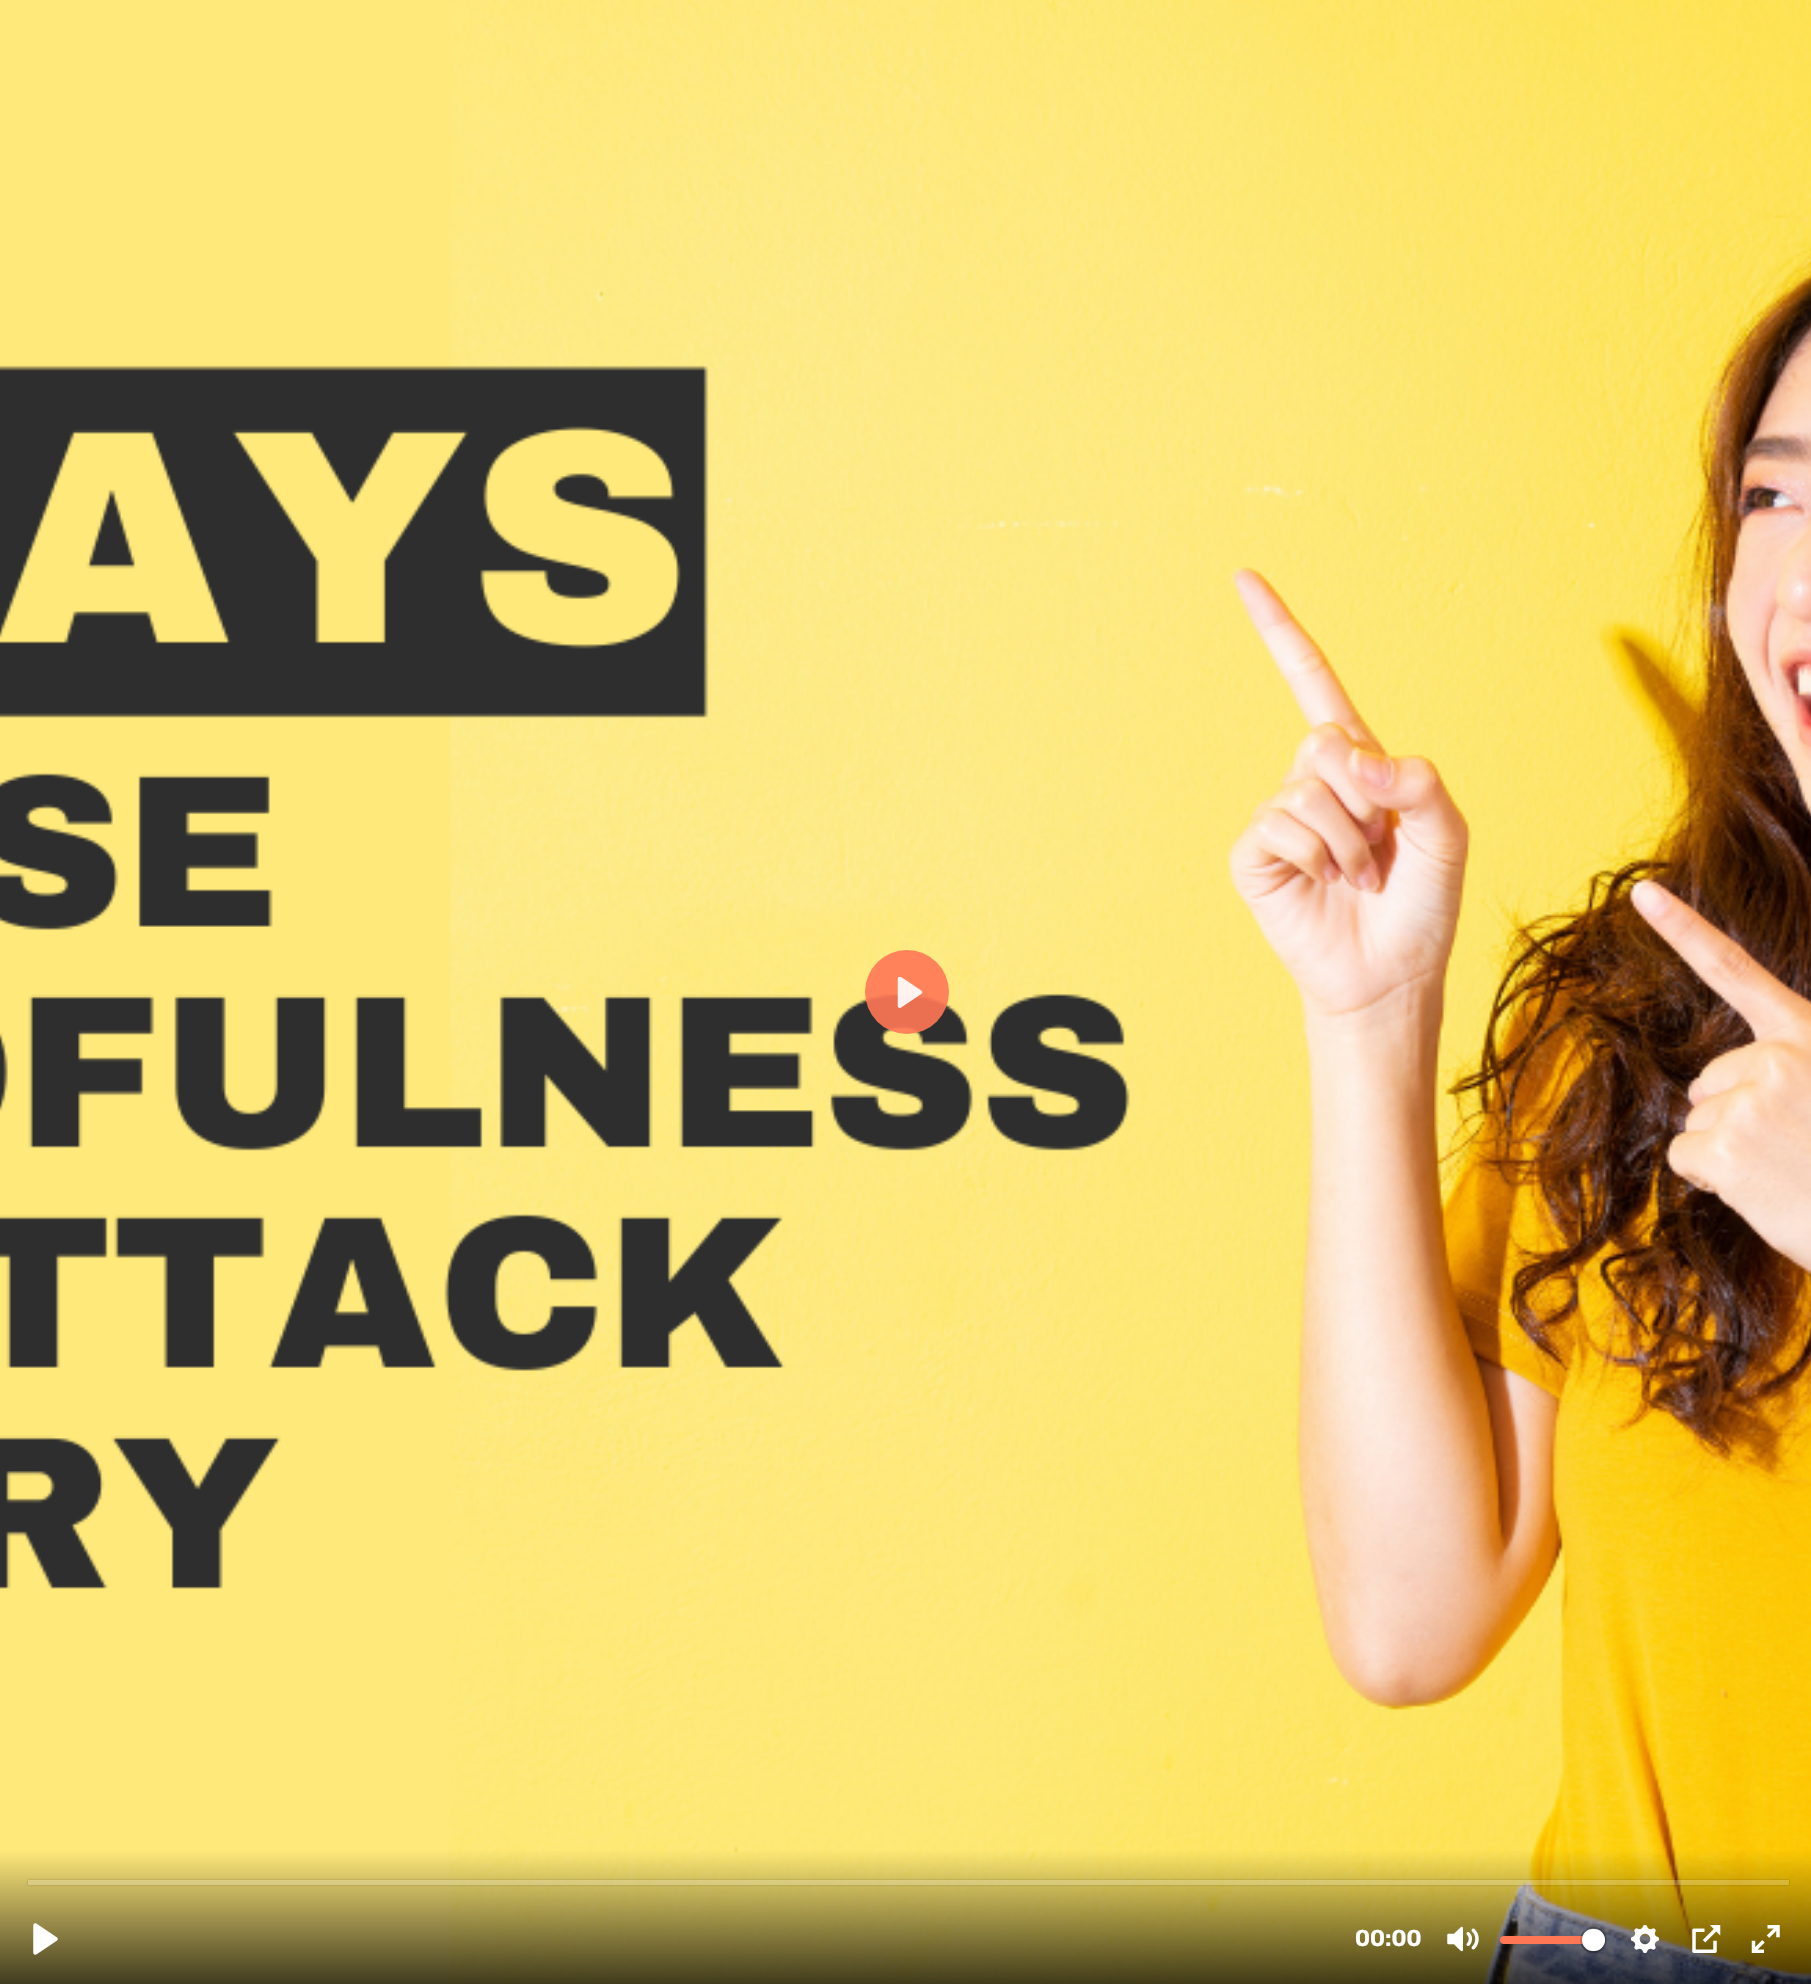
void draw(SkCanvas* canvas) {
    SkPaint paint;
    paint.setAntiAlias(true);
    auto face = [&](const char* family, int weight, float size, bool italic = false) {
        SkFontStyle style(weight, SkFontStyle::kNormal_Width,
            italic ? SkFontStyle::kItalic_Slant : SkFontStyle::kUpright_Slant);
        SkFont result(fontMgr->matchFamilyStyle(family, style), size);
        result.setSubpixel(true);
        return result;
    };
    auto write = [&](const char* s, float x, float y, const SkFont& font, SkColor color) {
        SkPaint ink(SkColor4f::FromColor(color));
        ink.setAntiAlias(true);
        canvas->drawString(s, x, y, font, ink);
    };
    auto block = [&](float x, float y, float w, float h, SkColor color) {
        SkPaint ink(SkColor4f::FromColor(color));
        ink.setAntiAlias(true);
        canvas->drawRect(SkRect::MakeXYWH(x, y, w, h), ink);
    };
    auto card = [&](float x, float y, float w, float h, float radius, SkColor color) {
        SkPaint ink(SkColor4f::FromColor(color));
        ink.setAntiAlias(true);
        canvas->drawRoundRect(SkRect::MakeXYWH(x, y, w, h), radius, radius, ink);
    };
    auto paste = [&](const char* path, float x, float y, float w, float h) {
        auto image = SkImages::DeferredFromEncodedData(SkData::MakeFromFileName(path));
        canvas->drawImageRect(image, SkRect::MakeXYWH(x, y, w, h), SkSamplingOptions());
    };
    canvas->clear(SK_ColorWHITE);
    paste("pic1.png", 0, 0, 1811, 1984);
    paint.setColor(SkColorSetARGB(230, 255, 119, 85));
    canvas->drawCircle(907, 992, 42, paint);
    paste("pic2.png", 897, 977, 26, 31);
    canvas->save();
    canvas->clipPath(SkPathBuilder(SkPathFillType::kEvenOdd).moveTo(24, 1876).lineTo(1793, 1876).lineTo(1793, 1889).lineTo(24, 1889).close().moveTo(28, 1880).lineTo(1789, 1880).lineTo(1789, 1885).lineTo(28, 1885).close().detach(), true);
    paint.setColor(SkColorSetARGB(79, 0, 0, 0));
    paint.setMaskFilter(SkMaskFilter::MakeBlur(kNormal_SkBlurStyle, 1));
    canvas->drawRect(SkRect::MakeXYWH(28, 1880, 1761, 5), paint);
    paint.setMaskFilter(nullptr);
    canvas->restore();
    block(28, 1880, 1761, 5, SkColorSetARGB(51, 255, 255, 255));
    paste("pic3.png", 33, 1923, 25, 32);
    auto kFont1 = face("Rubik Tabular", 600, 23);
    write("00:00", 1355, 1946, kFont1, SK_ColorWHITE);
    paste("pic4.png", 1447, 1926, 32, 26);
    card(1500, 1936, 105, 8, 4, SkColorSetRGB(255, 119, 85));
    paint.setStyle(SkPaint::kStroke_Style);
    paint.setStrokeWidth(2);
    paint.setColor(SkColorSetARGB(51, 35, 40, 47));
    canvas->drawRoundRect(SkRect::MakeXYWH(1581, 1928, 25, 24), 12, 12, paint);
    paint.setStyle(SkPaint::kFill_Style);
    paint.setColor(SkColorSetARGB(38, 35, 40, 47));
    paint.setMaskFilter(SkMaskFilter::MakeBlur(kNormal_SkBlurStyle, 1));
    canvas->drawRoundRect(SkRect::MakeXYWH(1582, 1930, 23, 23), 11.5f, 11.5f, paint);
    paint.setMaskFilter(nullptr);
    card(1582, 1929, 23, 22, 11, SK_ColorWHITE);
    paste("pic5.png", 1631, 1925, 28, 28);
    paste("pic6.png", 1692, 1925, 29, 28);
    paste("pic7.png", 1751, 1925, 29, 28);
}
